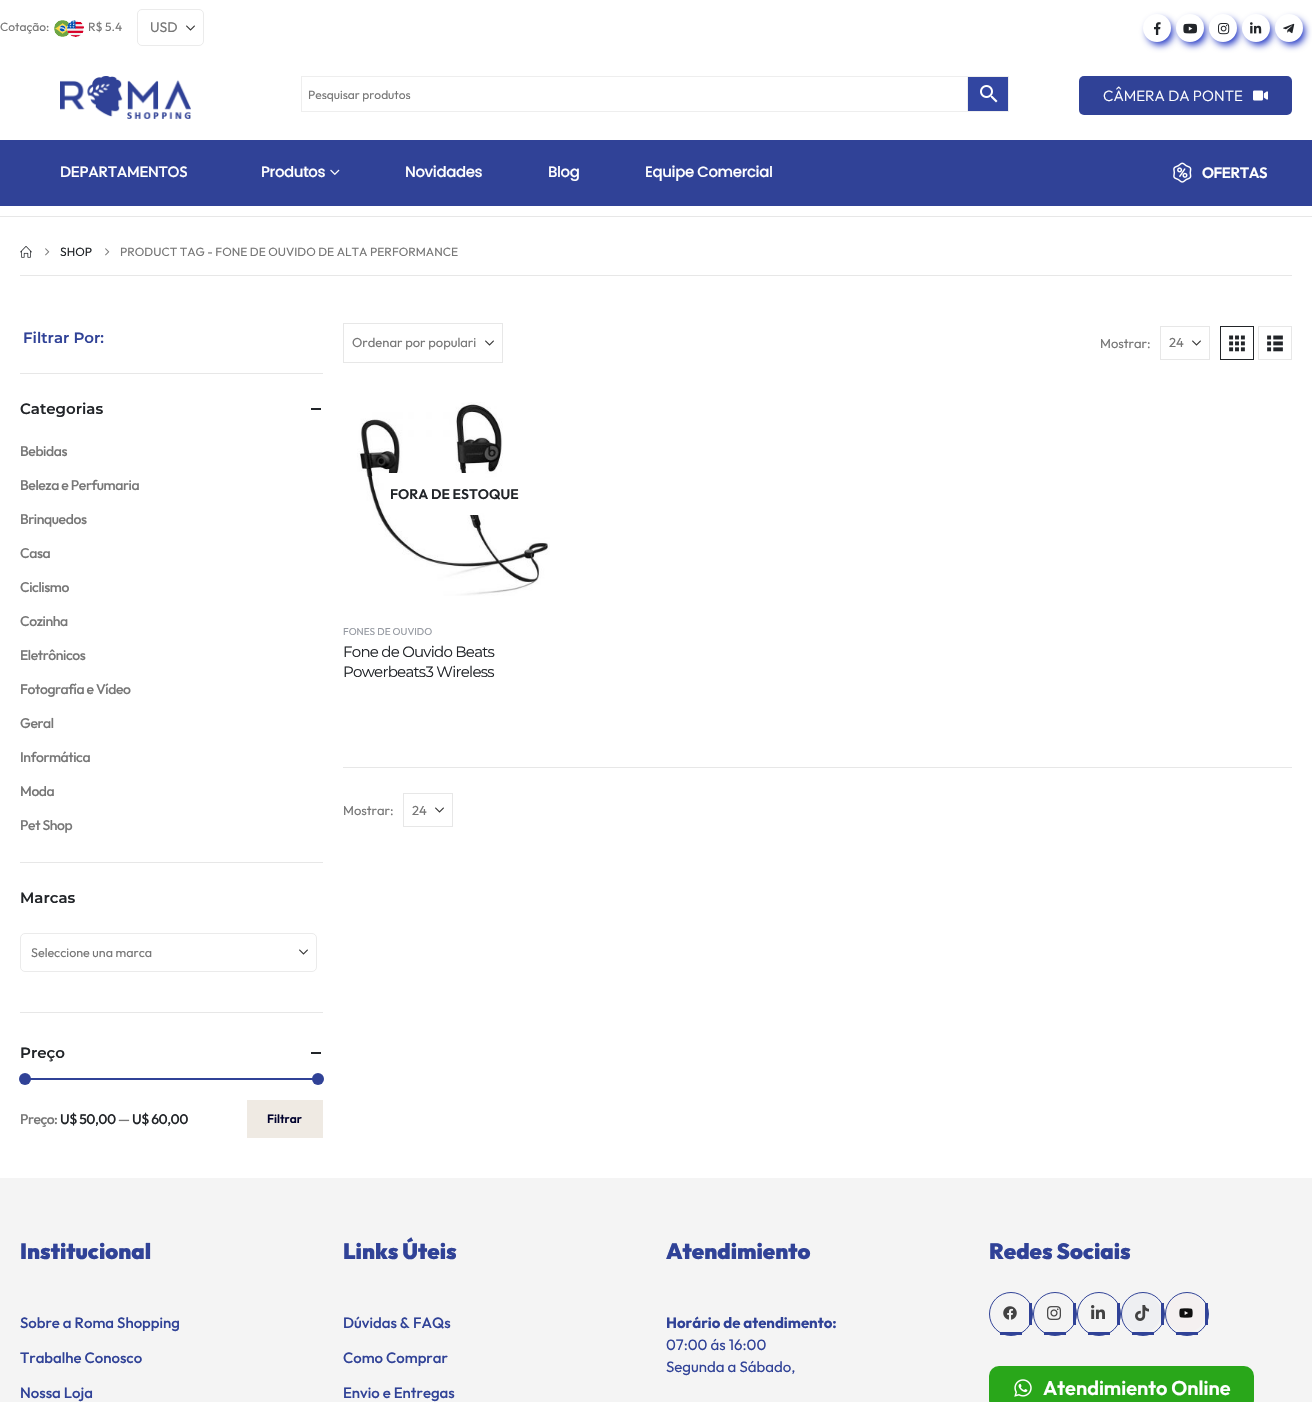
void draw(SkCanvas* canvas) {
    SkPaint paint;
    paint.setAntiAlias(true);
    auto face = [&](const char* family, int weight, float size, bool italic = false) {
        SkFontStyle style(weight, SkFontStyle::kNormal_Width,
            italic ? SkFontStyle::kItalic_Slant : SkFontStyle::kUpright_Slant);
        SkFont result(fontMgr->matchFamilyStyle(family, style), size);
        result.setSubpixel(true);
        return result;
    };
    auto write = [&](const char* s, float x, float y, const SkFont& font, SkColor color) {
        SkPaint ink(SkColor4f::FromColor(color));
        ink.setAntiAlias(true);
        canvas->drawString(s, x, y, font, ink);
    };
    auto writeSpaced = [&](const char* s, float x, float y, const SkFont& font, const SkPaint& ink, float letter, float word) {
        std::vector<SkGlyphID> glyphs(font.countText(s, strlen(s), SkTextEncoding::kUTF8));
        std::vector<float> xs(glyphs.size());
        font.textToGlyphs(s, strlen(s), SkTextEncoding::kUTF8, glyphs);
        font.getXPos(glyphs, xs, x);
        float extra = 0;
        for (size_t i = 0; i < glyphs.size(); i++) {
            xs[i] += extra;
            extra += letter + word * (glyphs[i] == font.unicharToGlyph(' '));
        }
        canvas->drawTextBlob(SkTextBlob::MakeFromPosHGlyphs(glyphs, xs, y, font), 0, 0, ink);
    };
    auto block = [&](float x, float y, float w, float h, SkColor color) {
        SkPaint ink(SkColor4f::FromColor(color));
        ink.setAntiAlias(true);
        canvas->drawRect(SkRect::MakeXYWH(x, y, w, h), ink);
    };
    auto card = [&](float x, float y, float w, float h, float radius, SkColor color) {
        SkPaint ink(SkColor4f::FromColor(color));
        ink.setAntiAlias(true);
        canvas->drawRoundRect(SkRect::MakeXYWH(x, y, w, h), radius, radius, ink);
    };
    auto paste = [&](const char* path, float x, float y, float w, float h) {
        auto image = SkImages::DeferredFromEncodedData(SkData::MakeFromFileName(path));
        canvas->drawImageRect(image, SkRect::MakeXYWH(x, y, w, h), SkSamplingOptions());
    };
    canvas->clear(SK_ColorWHITE);
    auto kFont1 = face("Outfit", 400, 12);
    write("Cotação:", 0, 31, kFont1, SkColorSetRGB(119, 119, 119));
    paste("pic1.png", 54, 20, 30, 17);
    write("R$ 5.4", 88, 31, kFont1, SkColorSetRGB(119, 119, 119));
    paste("pic2.png", 186, 25, 9, 6);
    paint.setStyle(SkPaint::kStroke_Style);
    paint.setStrokeWidth(1);
    paint.setColor(SkColorSetRGB(235, 235, 235));
    canvas->drawRoundRect(SkRect::MakeXYWH(137.5f, 9.5f, 66, 36), 4.5f, 4.5f, paint);
    auto kFont2 = face("Outfit", 400, 14);
    write("USD", 150, 32, kFont2, SkColorSetRGB(119, 119, 119));
    paint.setStyle(SkPaint::kFill_Style);
    paint.setColor(SkColorSetRGB(34, 55, 196));
    paint.setMaskFilter(SkMaskFilter::MakeBlur(kNormal_SkBlurStyle, 3.5f));
    canvas->drawRoundRect(SkRect::MakeXYWH(1147, 19, 26, 26), 13, 13, paint);
    paint.setMaskFilter(nullptr);
    paint.setColor(SK_ColorWHITE);
    canvas->drawCircle(1157, 28, 14, paint);
    paste("pic3.png", 1154, 22, 7, 13);
    paint.setColor(SkColorSetRGB(34, 55, 196));
    paint.setMaskFilter(SkMaskFilter::MakeBlur(kNormal_SkBlurStyle, 3.5f));
    canvas->drawRoundRect(SkRect::MakeXYWH(1180, 19, 26, 26), 13, 13, paint);
    paint.setMaskFilter(nullptr);
    paint.setColor(SK_ColorWHITE);
    canvas->drawCircle(1190, 28, 14, paint);
    paste("pic4.png", 1183, 23, 15, 11);
    paint.setColor(SkColorSetRGB(34, 55, 196));
    paint.setMaskFilter(SkMaskFilter::MakeBlur(kNormal_SkBlurStyle, 3.5f));
    canvas->drawRoundRect(SkRect::MakeXYWH(1213, 19, 26, 26), 13, 13, paint);
    paint.setMaskFilter(nullptr);
    paint.setColor(SK_ColorWHITE);
    canvas->drawCircle(1223, 28, 14, paint);
    paste("pic5.png", 1218, 23, 12, 12);
    paint.setColor(SkColorSetRGB(34, 55, 196));
    paint.setMaskFilter(SkMaskFilter::MakeBlur(kNormal_SkBlurStyle, 3.5f));
    canvas->drawRoundRect(SkRect::MakeXYWH(1246, 19, 26, 26), 13, 13, paint);
    paint.setMaskFilter(nullptr);
    paint.setColor(SK_ColorWHITE);
    canvas->drawCircle(1256, 28, 14, paint);
    paste("pic6.png", 1250, 22, 12, 12);
    paint.setColor(SkColorSetRGB(34, 55, 196));
    paint.setMaskFilter(SkMaskFilter::MakeBlur(kNormal_SkBlurStyle, 3.5f));
    canvas->drawRoundRect(SkRect::MakeXYWH(1279, 19, 26, 26), 13, 13, paint);
    paint.setMaskFilter(nullptr);
    paint.setColor(SK_ColorWHITE);
    canvas->drawCircle(1289, 28, 14, paint);
    paste("pic7.png", 1283, 23, 12, 11);
    paste("pic8.png", 60, 76, 131, 43);
    paint.setColor(SkColorSetRGB(50, 70, 161));
    canvas->drawRect(SkRect::MakeXYWH(967.5f, 76.5f, 41, 35), paint);
    paint.setStyle(SkPaint::kStroke_Style);
    paint.setColor(SkColorSetRGB(238, 238, 238));
    canvas->drawRect(SkRect::MakeXYWH(967.5f, 76.5f, 41, 35), paint);
    canvas->drawRect(SkRect::MakeXYWH(301.5f, 76.5f, 666, 35), paint);
    write("Pesquisar produtos", 308, 99, kFont1, SkColorSetRGB(119, 119, 119));
    paste("pic9.png", 980, 85, 18, 18);
    card(1079, 76, 213, 39, 5, SkColorSetRGB(48, 66, 151));
    auto kFont3 = face("Outfit", 300, 15);
    write("CÂMERA DA PONTE", 1103, 101, kFont3, SK_ColorWHITE);
    paste("pic10.png", 1253, 90, 15, 11);
    block(0, 140, 1312, 66, SkColorSetRGB(48, 66, 151));
    auto kFont4 = face("Outfit", 500, 15);
    paint.setStyle(SkPaint::kFill_Style);
    paint.setColor(SK_ColorWHITE);
    writeSpaced("DEPARTAMENTOS", 60, 177, kFont4, paint, -0.25f, 0);
    auto kFont5 = face("Poppins", 500, 15);
    writeSpaced("Produtos", 261, 177, kFont5, paint, -0.4f, 0);
    paste("pic11.png", 330, 169, 10, 6);
    writeSpaced("Novidades", 405, 177, kFont5, paint, -0.4f, 0);
    writeSpaced("Blog", 548, 177, kFont5, paint, -0.4f, 0);
    writeSpaced("Equipe Comercial", 645, 177, kFont5, paint, -0.4f, 0);
    paste("pic12.png", 1173, 162, 19, 21);
    auto kFont6 = face("Outfit", 600, 15);
    writeSpaced("OFERTAS", 1202, 178, kFont6, paint, -0.4f, 0);
    block(0, 216, 1312, 1, SkColorSetRGB(231, 231, 231));
    paste("pic13.png", 20, 246, 12, 12);
    paste("pic14.png", 45, 248, 5, 8);
    write("SHOP", 60, 256, kFont1, SkColorSetRGB(34, 37, 41));
    paste("pic14.png", 105, 248, 5, 8);
    write("PRODUCT TAG - FONE DE OUVIDO DE ALTA PERFORMANCE", 120, 256, kFont1, SkColorSetRGB(119, 119, 119));
    block(20, 275, 1272, 1, SkColorSetRGB(231, 231, 231));
    block(20, 373, 303, 1, SkColorSetRGB(231, 231, 231));
    auto kFont7 = face("Montserrat", 600, 15);
    write("Filtrar Por:", 23, 343, kFont7, SkColorSetRGB(48, 66, 151));
    block(20, 862, 303, 1, SkColorSetRGB(231, 231, 231));
    write("Categorias", 20, 414, kFont7, SkColorSetRGB(34, 37, 41));
    block(311, 408, 10, 2, SkColorSetRGB(34, 37, 41));
    auto kFont8 = face("Outfit", 500, 14);
    paint.setColor(SkColorSetRGB(119, 119, 119));
    writeSpaced("Bebidas", 20, 456, kFont8, paint, -0.4f, 0);
    writeSpaced("Beleza e Perfumaria", 20, 490, kFont8, paint, -0.4f, 0);
    writeSpaced("Brinquedos", 20, 524, kFont8, paint, -0.4f, 0);
    writeSpaced("Casa", 20, 558, kFont8, paint, -0.4f, 0);
    writeSpaced("Ciclismo", 20, 592, kFont8, paint, -0.4f, 0);
    writeSpaced("Cozinha", 20, 626, kFont8, paint, -0.4f, 0);
    writeSpaced("Eletrônicos", 20, 660, kFont8, paint, -0.4f, 0);
    writeSpaced("Fotografía e Vídeo", 20, 694, kFont8, paint, -0.4f, 0);
    writeSpaced("Geral", 20, 728, kFont8, paint, -0.4f, 0);
    writeSpaced("Informática", 20, 762, kFont8, paint, -0.4f, 0);
    writeSpaced("Moda", 20, 796, kFont8, paint, -0.4f, 0);
    writeSpaced("Pet Shop", 20, 830, kFont8, paint, -0.4f, 0);
    block(20, 1012, 303, 1, SkColorSetRGB(231, 231, 231));
    write("Marcas", 20, 903, kFont7, SkColorSetRGB(34, 37, 41));
    paste("pic2.png", 299, 949, 9, 6);
    paint.setStyle(SkPaint::kStroke_Style);
    paint.setColor(SkColorSetRGB(235, 235, 235));
    canvas->drawRoundRect(SkRect::MakeXYWH(20.5f, 933.5f, 296, 38), 4.5f, 4.5f, paint);
    auto kFont9 = face("Outfit", 400, 12.5f);
    write("Seleccione una marca", 31, 957, kFont9, SkColorSetRGB(119, 119, 119));
    write("Preço", 20, 1058, kFont7, SkColorSetRGB(34, 37, 41));
    block(311, 1052, 10, 2, SkColorSetRGB(34, 37, 41));
    block(25, 1078, 293, 2, SkColorSetRGB(48, 66, 151));
    paint.setStyle(SkPaint::kFill_Style);
    paint.setColor(SkColorSetRGB(48, 66, 151));
    canvas->drawCircle(25, 1079, 6, paint);
    canvas->drawCircle(318, 1079, 6, paint);
    paint.setColor(SkColorSetRGB(119, 119, 119));
    writeSpaced("Preço:", 20, 1124, kFont8, paint, -0.5f, 0);
    paint.setColor(SkColorSetRGB(34, 37, 41));
    writeSpaced("U$ 50,00", 60, 1124, kFont8, paint, -0.5f, 0);
    paint.setColor(SkColorSetRGB(119, 119, 119));
    writeSpaced("—", 118, 1124, kFont8, paint, -0.5f, 0);
    paint.setColor(SkColorSetRGB(34, 37, 41));
    writeSpaced("U$ 60,00", 132, 1124, kFont8, paint, -0.5f, 0);
    block(247, 1100, 76, 38, SkColorSetRGB(239, 234, 227));
    auto kFont10 = face("Outfit", 600, 12);
    write("Filtrar", 267, 1123, kFont10, SkColorSetRGB(0, 1, 45));
    paste("pic2.png", 485, 340, 9, 6);
    paint.setStyle(SkPaint::kStroke_Style);
    paint.setColor(SkColorSetRGB(231, 231, 231));
    canvas->drawRect(SkRect::MakeXYWH(343.5f, 323.5f, 159, 39), paint);
    auto kFont11 = face("Outfit", 400, 13);
    write("Ordenar por populari", 352, 347, kFont11, SkColorSetRGB(119, 119, 119));
    write("Mostrar:", 1100, 348, kFont11, SkColorSetRGB(119, 119, 119));
    paste("pic2.png", 1192, 340, 9, 6);
    canvas->drawRect(SkRect::MakeXYWH(1160.5f, 326.5f, 49, 33), paint);
    write("24", 1169, 347, kFont11, SkColorSetRGB(119, 119, 119));
    paint.setColor(SkColorSetRGB(34, 37, 41));
    canvas->drawRect(SkRect::MakeXYWH(1220.5f, 326.5f, 33, 33), paint);
    paste("pic15.png", 1229, 335, 16, 17);
    paint.setColor(SkColorSetRGB(231, 231, 231));
    canvas->drawRect(SkRect::MakeXYWH(1258.5f, 326.5f, 33, 33), paint);
    paste("pic16.png", 1267, 335, 16, 17);
    paste("pic17.png", 357, 402, 193, 194);
    block(384, 473, 96, 42, SK_ColorWHITE);
    auto kFont12 = face("Outfit", 600, 14);
    write("FORA DE ESTOQUE", 390, 499, kFont12, SkColorSetRGB(34, 37, 41));
    auto kFont13 = face("Outfit", 400, 10);
    write("FONES DE OUVIDO", 343, 635, kFont13, SkColorSetRGB(149, 153, 161));
    auto kFont14 = face("Montserrat", 400, 15);
    paint.setStyle(SkPaint::kFill_Style);
    paint.setColor(SkColorSetRGB(34, 37, 41));
    writeSpaced("Fone de Ouvido Beats", 343, 657, kFont14, paint, -0.75f, 0);
    writeSpaced("Powerbeats3 Wireless", 343, 677, kFont14, paint, -0.75f, 0);
    block(343, 767, 949, 1, SkColorSetRGB(231, 231, 231));
    write("Mostrar:", 343, 815, kFont11, SkColorSetRGB(119, 119, 119));
    paste("pic2.png", 435, 807, 9, 6);
    paint.setStyle(SkPaint::kStroke_Style);
    paint.setColor(SkColorSetRGB(231, 231, 231));
    canvas->drawRect(SkRect::MakeXYWH(403.5f, 793.5f, 49, 33), paint);
    write("24", 412, 815, kFont11, SkColorSetRGB(119, 119, 119));
    block(0, 1178, 1312, 224, SkColorSetRGB(244, 244, 244));
    auto kFont15 = face("Outfit", 900, 22);
    write("Institucional", 20, 1259, kFont15, SkColorSetRGB(48, 66, 151));
    write("Sobre a Roma Shopping", 20, 1328, kFont4, SkColorSetRGB(48, 66, 151));
    write("Trabalhe Conosco", 20, 1363, kFont4, SkColorSetRGB(48, 66, 151));
    write("Nossa Loja", 20, 1398, kFont4, SkColorSetRGB(48, 66, 151));
    write("Links Úteis", 343, 1259, kFont15, SkColorSetRGB(48, 66, 151));
    write("Dúvidas & FAQs", 343, 1328, kFont4, SkColorSetRGB(48, 66, 151));
    write("Como Comprar", 343, 1363, kFont4, SkColorSetRGB(48, 66, 151));
    write("Envio e Entregas", 343, 1398, kFont4, SkColorSetRGB(48, 66, 151));
    write("Atendimiento", 666, 1259, kFont15, SkColorSetRGB(48, 66, 151));
    auto kFont16 = face("Outfit", 700, 15);
    write("Horário de atendimento:", 666, 1328, kFont16, SkColorSetRGB(48, 66, 151));
    auto kFont17 = face("Outfit", 400, 15);
    write("07:00 ás 16:00", 666, 1350, kFont17, SkColorSetRGB(48, 66, 151));
    write("Segunda a Sábado,", 666, 1372, kFont17, SkColorSetRGB(48, 66, 151));
    write("Redes Sociais", 989, 1259, kFont15, SkColorSetRGB(48, 66, 151));
    paint.setColor(SkColorSetRGB(48, 66, 151));
    canvas->drawCircle(1011, 1314, 21.5f, paint);
    block(1029, 1303, 3, 22, SkColorSetRGB(48, 66, 151));
    block(1000, 1332, 22, 3, SkColorSetRGB(48, 66, 151));
    paste("pic18.png", 1003, 1306, 14, 14);
    canvas->drawCircle(1055, 1314, 21.5f, paint);
    block(1073, 1303, 3, 22, SkColorSetRGB(48, 66, 151));
    block(1044, 1332, 22, 3, SkColorSetRGB(48, 66, 151));
    paste("pic19.png", 1047, 1306, 14, 14);
    canvas->drawCircle(1099, 1314, 21.5f, paint);
    block(1117, 1303, 3, 22, SkColorSetRGB(48, 66, 151));
    block(1088, 1332, 22, 3, SkColorSetRGB(48, 66, 151));
    paste("pic20.png", 1091, 1305, 14, 14);
    paint.setStyle(SkPaint::kFill_Style);
    paint.setColor(SkColorSetRGB(238, 239, 242));
    canvas->drawPath(SkPathBuilder().moveTo(1143, 1293).cubicTo(1153, 1293, 1161, 1302.5f, 1161, 1314).cubicTo(1161, 1324, 1153, 1332, 1143, 1332).cubicTo(1131.5f, 1332, 1122, 1324, 1122, 1314).cubicTo(1122, 1302.5f, 1131.5f, 1293, 1143, 1293).close().detach(), paint);
    paint.setStyle(SkPaint::kStroke_Style);
    paint.setColor(SkColorSetRGB(48, 66, 151));
    canvas->drawCircle(1143, 1314, 21.5f, paint);
    block(1161, 1303, 3, 22, SkColorSetRGB(48, 66, 151));
    block(1132, 1332, 22, 3, SkColorSetRGB(48, 66, 151));
    paste("pic21.png", 1135, 1305, 14, 16);
    paint.setStyle(SkPaint::kFill_Style);
    paint.setColor(SkColorSetRGB(244, 240, 240));
    canvas->drawPath(SkPathBuilder().moveTo(1187, 1293).cubicTo(1197, 1293, 1205, 1302.5f, 1205, 1314).cubicTo(1205, 1324, 1197, 1332, 1187, 1332).cubicTo(1175.5f, 1332, 1166, 1324, 1166, 1314).cubicTo(1166, 1302.5f, 1175.5f, 1293, 1187, 1293).close().detach(), paint);
    paint.setStyle(SkPaint::kStroke_Style);
    paint.setColor(SkColorSetRGB(48, 66, 151));
    canvas->drawCircle(1187, 1314, 21.5f, paint);
    block(1205, 1303, 3, 22, SkColorSetRGB(48, 66, 151));
    block(1176, 1332, 22, 3, SkColorSetRGB(48, 66, 151));
    paste("pic22.png", 1179, 1308, 14, 10);
    card(989, 1366, 265, 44, 10, SkColorSetRGB(41, 167, 26));
    paste("pic23.png", 1014, 1379, 18, 18);
    auto kFont18 = face("Outfit", 600, 20);
    write("Atendimiento Online", 1043, 1395, kFont18, SK_ColorWHITE);
}
